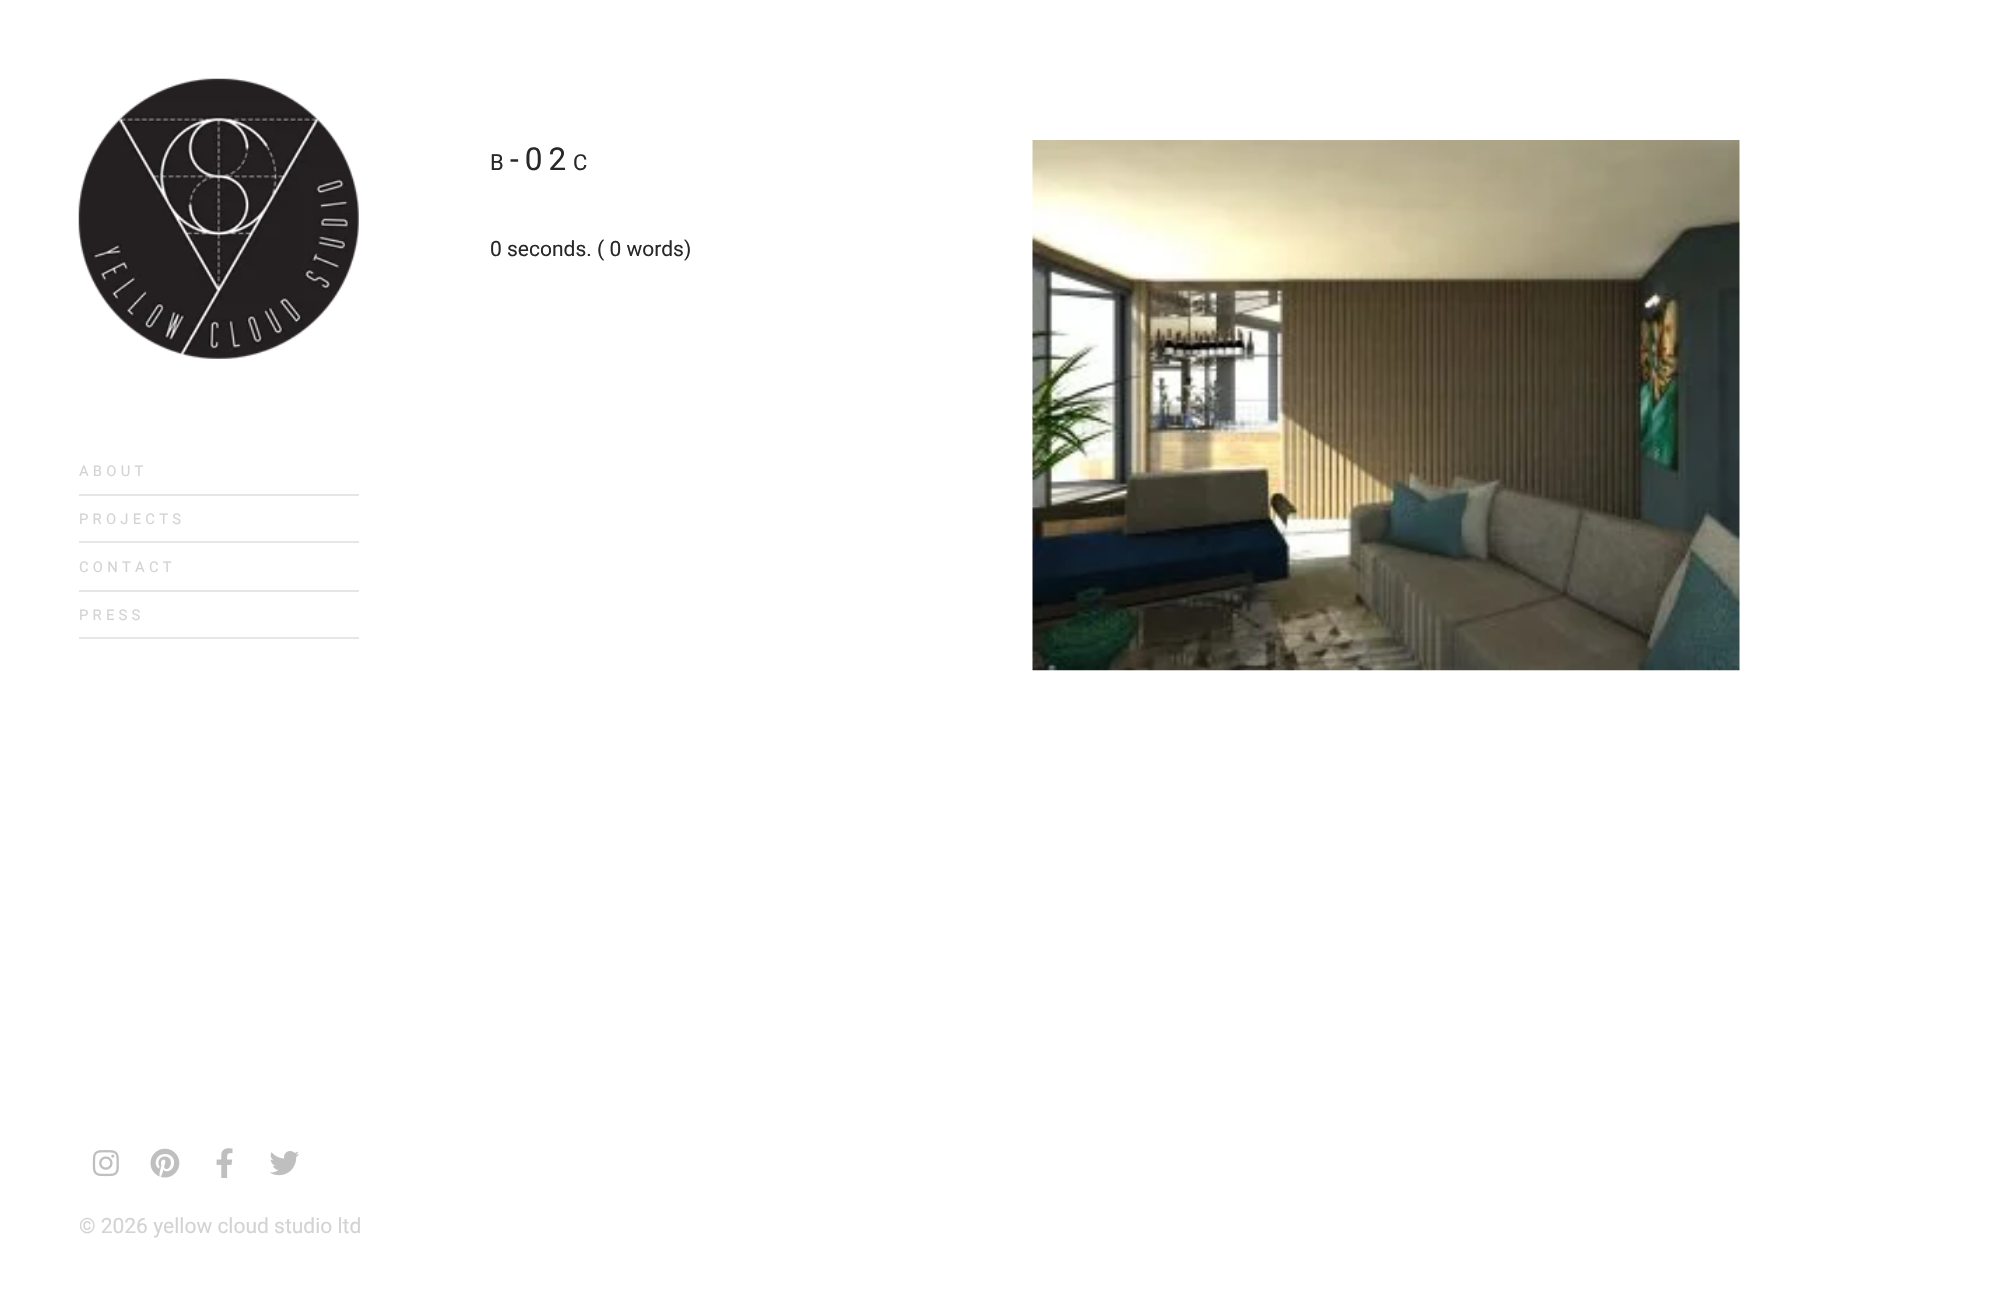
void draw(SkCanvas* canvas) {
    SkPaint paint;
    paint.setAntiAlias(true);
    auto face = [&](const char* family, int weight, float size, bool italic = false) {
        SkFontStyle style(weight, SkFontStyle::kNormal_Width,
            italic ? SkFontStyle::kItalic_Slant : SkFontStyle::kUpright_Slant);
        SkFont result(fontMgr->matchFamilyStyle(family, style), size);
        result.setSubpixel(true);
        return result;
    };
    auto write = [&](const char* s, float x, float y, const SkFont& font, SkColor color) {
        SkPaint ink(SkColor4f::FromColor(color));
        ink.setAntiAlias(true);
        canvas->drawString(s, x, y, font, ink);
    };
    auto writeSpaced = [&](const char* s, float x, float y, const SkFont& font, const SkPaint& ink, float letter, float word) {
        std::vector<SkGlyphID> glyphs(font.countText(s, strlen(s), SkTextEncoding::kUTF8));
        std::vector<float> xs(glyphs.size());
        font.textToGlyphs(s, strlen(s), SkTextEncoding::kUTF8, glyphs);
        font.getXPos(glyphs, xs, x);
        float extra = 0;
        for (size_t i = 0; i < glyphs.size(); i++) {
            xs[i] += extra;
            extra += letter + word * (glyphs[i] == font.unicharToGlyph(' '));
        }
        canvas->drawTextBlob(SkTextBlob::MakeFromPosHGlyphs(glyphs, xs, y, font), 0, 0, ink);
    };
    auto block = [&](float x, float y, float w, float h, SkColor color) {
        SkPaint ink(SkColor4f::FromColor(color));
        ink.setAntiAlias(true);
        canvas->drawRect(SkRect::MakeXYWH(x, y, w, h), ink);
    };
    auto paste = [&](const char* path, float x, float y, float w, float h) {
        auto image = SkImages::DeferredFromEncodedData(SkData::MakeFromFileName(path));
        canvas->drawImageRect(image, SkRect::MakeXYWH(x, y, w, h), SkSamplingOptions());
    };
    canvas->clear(SK_ColorWHITE);
    auto kFont1 = face("Roboto", 400, 22);
    paint.setColor(SkColorSetRGB(40, 40, 40));
    writeSpaced("B", 490, 170, kFont1, paint, 6, 0);
    auto kFont2 = face("Roboto", 400, 31.5f);
    writeSpaced("-02", 510, 170, kFont2, paint, 6, 0);
    writeSpaced("C", 573, 170, kFont1, paint, 6, 0);
    auto kFont3 = face("Roboto", 400, 21);
    write("0 seconds. ( 0 words)", 490, 256, kFont3, SkColorSetRGB(40, 40, 40));
    paint.setStyle(SkPaint::kStroke_Style);
    paint.setStrokeWidth(1.8f);
    paint.setColor(SkColorSetRGB(47, 47, 47));
    paint.setPathEffect(SkDashPathEffect::Make({{1.75f, 1.75f}}, 0));
    canvas->drawPath(SkPathBuilder().moveTo(1032.5f, 417.5f).lineTo(1739.5f, 417.5f).detach(), paint);
    paint.setPathEffect(nullptr);
    paste("pic1.png", 1032, 140, 708, 531);
    paste("pic2.png", 78, 78, 281, 281);
    block(79, 494, 280, 2, SkColorSetRGB(230, 230, 230));
    auto kFont4 = face("Roboto", 400, 14.75f);
    paint.setStyle(SkPaint::kFill_Style);
    paint.setColor(SkColorSetRGB(211, 211, 211));
    writeSpaced("ABOUT", 79, 476, kFont4, paint, 4.25f, 0);
    block(79, 541, 280, 2, SkColorSetRGB(230, 230, 230));
    writeSpaced("PROJECTS", 79, 524, kFont4, paint, 4.25f, 0);
    block(79, 590, 280, 2, SkColorSetRGB(230, 230, 230));
    writeSpaced("CONTACT", 79, 572, kFont4, paint, 4.25f, 0);
    block(79, 637, 280, 2, SkColorSetRGB(230, 230, 230));
    writeSpaced("PRESS", 79, 620, kFont4, paint, 4.25f, 0);
    paste("pic3.png", 92, 1150, 27, 27);
    paste("pic4.png", 150, 1148, 30, 30);
    paste("pic5.png", 216, 1148, 17, 30);
    paste("pic6.png", 270, 1151, 29, 25);
    write("© 2026 yellow cloud studio ltd", 79, 1233, kFont3, SkColorSetRGB(211, 211, 211));
}
